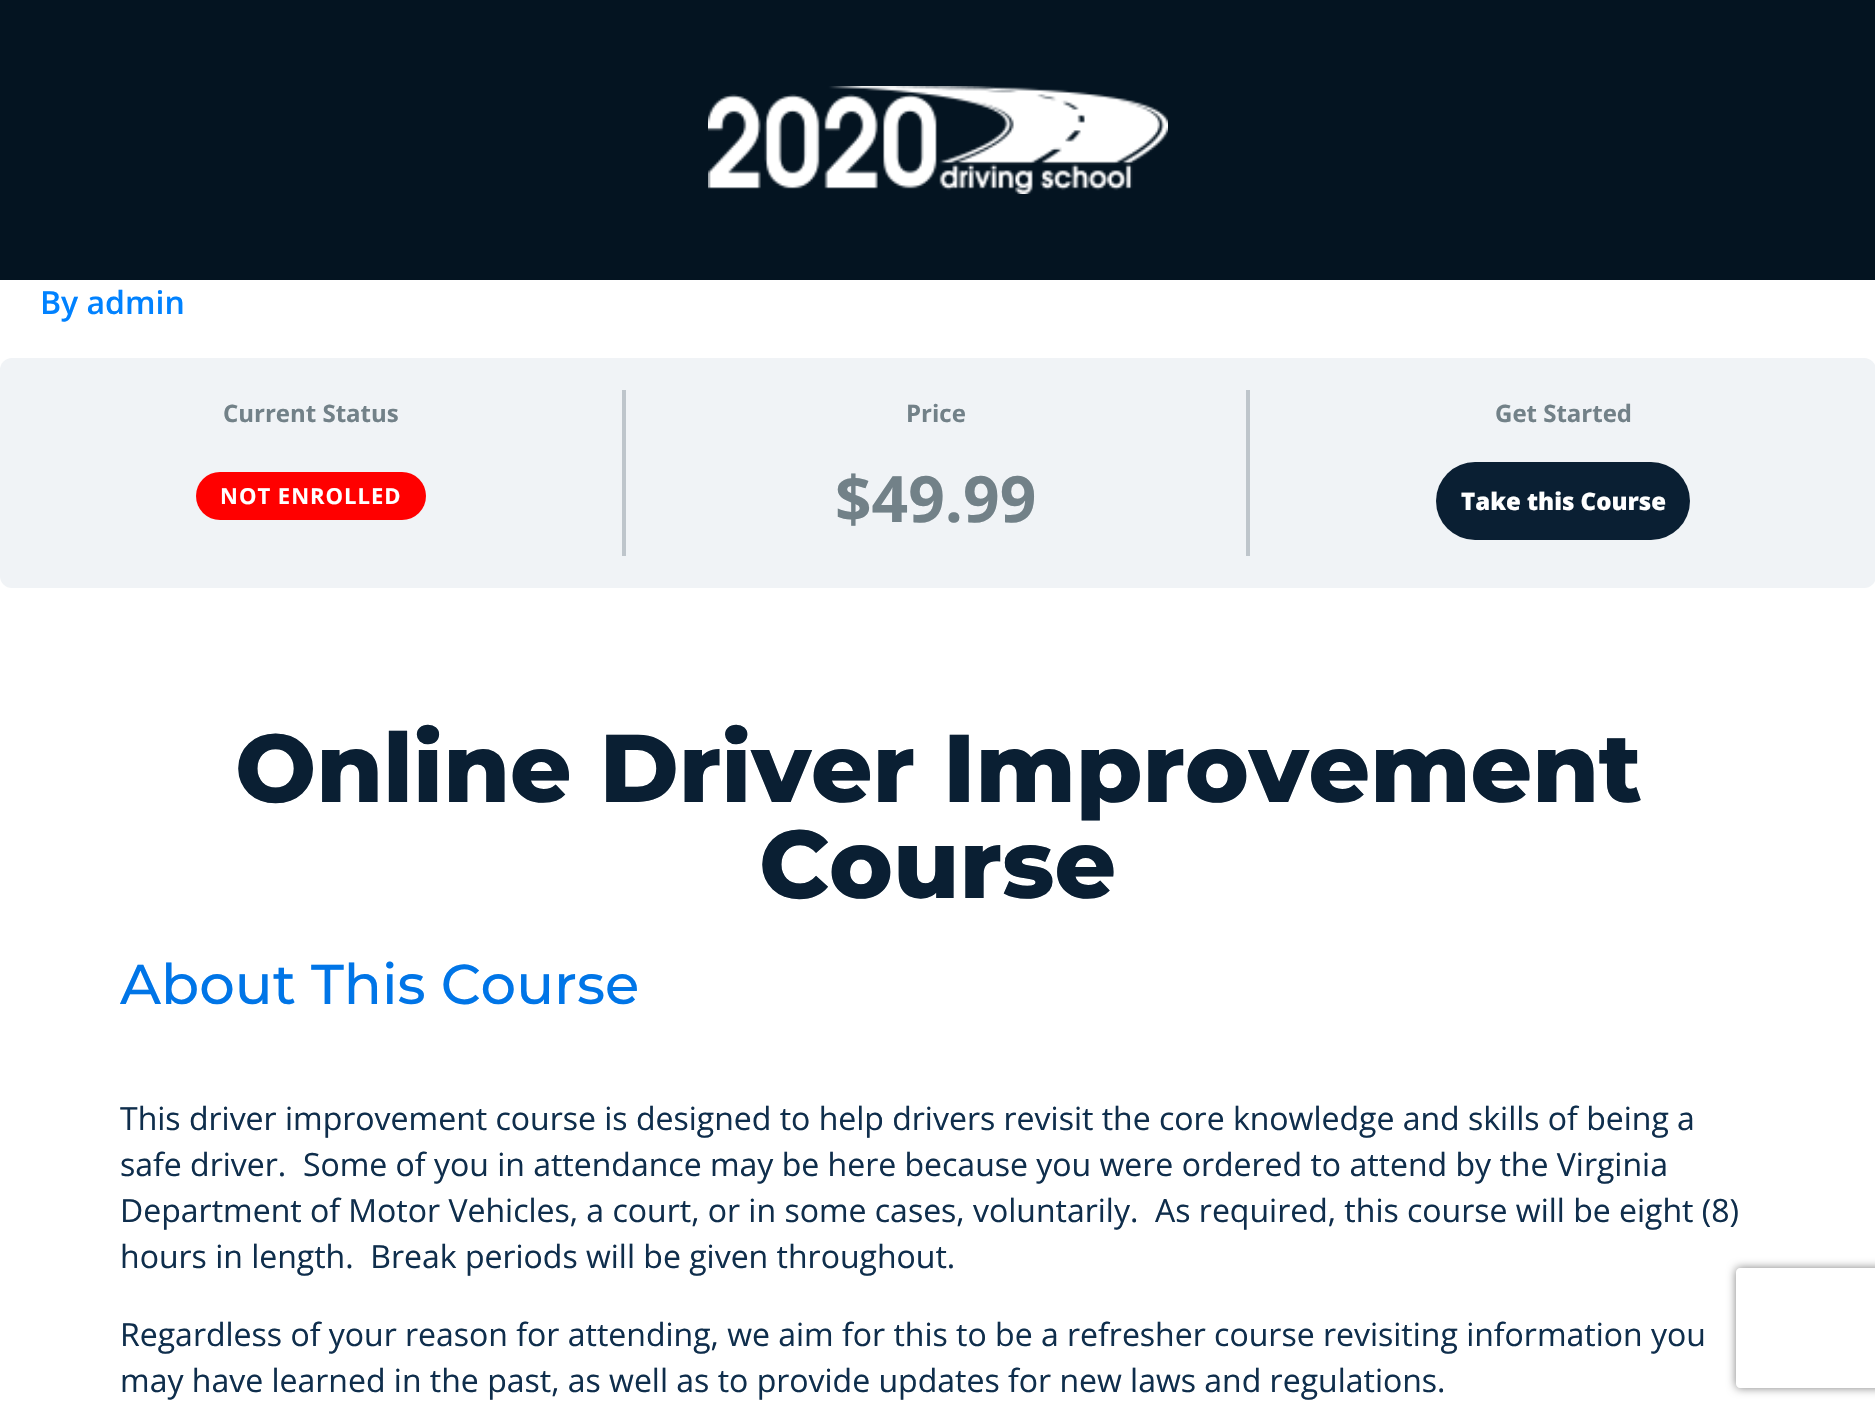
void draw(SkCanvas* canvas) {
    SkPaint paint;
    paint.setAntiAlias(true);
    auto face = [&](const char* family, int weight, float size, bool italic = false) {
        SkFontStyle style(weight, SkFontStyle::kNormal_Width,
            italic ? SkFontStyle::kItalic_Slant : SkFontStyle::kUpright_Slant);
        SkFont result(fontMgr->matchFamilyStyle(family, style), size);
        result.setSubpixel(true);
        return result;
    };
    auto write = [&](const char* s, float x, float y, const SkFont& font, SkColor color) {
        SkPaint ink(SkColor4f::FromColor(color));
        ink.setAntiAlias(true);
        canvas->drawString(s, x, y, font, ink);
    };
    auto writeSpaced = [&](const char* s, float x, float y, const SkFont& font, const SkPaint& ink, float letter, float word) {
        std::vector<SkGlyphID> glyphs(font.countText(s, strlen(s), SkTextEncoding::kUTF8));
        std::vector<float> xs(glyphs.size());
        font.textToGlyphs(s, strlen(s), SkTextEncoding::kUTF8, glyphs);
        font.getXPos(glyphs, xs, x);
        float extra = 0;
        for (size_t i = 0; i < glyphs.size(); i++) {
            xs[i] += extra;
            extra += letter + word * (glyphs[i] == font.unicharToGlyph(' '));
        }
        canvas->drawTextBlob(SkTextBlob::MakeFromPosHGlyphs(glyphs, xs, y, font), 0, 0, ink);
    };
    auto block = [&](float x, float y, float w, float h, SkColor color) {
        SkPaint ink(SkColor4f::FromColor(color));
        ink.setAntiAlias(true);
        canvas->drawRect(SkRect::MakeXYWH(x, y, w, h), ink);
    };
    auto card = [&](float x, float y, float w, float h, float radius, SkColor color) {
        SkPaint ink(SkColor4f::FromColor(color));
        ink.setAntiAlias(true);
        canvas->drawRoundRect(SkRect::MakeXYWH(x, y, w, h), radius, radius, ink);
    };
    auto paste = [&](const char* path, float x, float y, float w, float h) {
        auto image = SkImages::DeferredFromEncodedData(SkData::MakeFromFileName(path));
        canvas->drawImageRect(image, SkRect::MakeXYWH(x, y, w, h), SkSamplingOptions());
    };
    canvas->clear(SK_ColorWHITE);
    block(0, 0, 1875, 280, SkColorSetRGB(4, 20, 33));
    paste("pic1.png", 708, 86, 460, 108);
    auto kFont1 = face("Open Sans", 600, 32);
    write("By admin", 40, 314, kFont1, SkColorSetRGB(1, 130, 255));
    card(0, 358, 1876, 230, 12, SkColorSetRGB(240, 243, 246));
    block(622, 390, 4, 166, SkColorSetRGB(190, 197, 203));
    auto kFont2 = face("Open Sans", 700, 24);
    write("Current Status", 223, 422, kFont2, SkColorSetRGB(114, 129, 136));
    card(196, 472, 230, 48, 24, SkColorSetRGB(255, 0, 0));
    auto kFont3 = face("Open Sans", 700, 22);
    paint.setColor(SK_ColorWHITE);
    writeSpaced("NOT ENROLLED", 220, 504, kFont3, paint, 1, 0);
    block(1246, 390, 4, 166, SkColorSetRGB(190, 197, 203));
    write("Price", 906, 422, kFont2, SkColorSetRGB(114, 129, 136));
    auto kFont4 = face("Open Sans", 700, 64);
    write("$49.99", 835, 522, kFont4, SkColorSetRGB(114, 129, 136));
    write("Get Started", 1495, 422, kFont2, SkColorSetRGB(114, 129, 136));
    card(1436, 462, 254, 78, 39, SkColorSetRGB(10, 31, 51));
    auto kFont5 = face("Open Sans", 800, 24);
    write("Take this Course", 1461, 510, kFont5, SK_ColorWHITE);
    auto kFont6 = face("Montserrat", 800, 96);
    write("Online Driver Improvement", 235, 802, kFont6, SkColorSetRGB(10, 31, 51));
    write("Course", 759, 898, kFont6, SkColorSetRGB(10, 31, 51));
    auto kFont7 = face("Montserrat", 500, 56);
    write("About This Course", 120, 1004, kFont7, SkColorSetRGB(0, 117, 231));
    auto kFont8 = face("Open Sans", 400, 32);
    write("This driver improvement course is designed to help drivers revisit the core knowledge and skills of being a", 120, 1130, kFont8, SkColorSetRGB(15, 46, 76));
    write("safe driver.  Some of you in attendance may be here because you were ordered to attend by the Virginia", 120, 1176, kFont8, SkColorSetRGB(15, 46, 76));
    write("Department of Motor Vehicles, a court, or in some cases, voluntarily.  As required, this course will be eight (8)", 120, 1222, kFont8, SkColorSetRGB(15, 46, 76));
    write("hours in length.  Break periods will be given throughout.", 120, 1268, kFont8, SkColorSetRGB(15, 46, 76));
    write("Regardless of your reason for attending, we aim for this to be a refresher course revisiting information you", 120, 1346, kFont8, SkColorSetRGB(15, 46, 76));
    write("may have learned in the past, as well as to provide updates for new laws and regulations.", 120, 1392, kFont8, SkColorSetRGB(15, 46, 76));
    canvas->save();
    canvas->clipPath(SkPathBuilder(SkPathFillType::kEvenOdd).moveTo(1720, 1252).lineTo(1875, 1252).lineTo(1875, 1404).lineTo(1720, 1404).close().moveTo(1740, 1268).lineTo(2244, 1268).cubicTo(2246, 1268, 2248, 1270, 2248, 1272).lineTo(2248, 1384).cubicTo(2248, 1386, 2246, 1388, 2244, 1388).lineTo(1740, 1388).cubicTo(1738, 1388, 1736, 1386, 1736, 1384).lineTo(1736, 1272).cubicTo(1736, 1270, 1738, 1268, 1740, 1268).close().detach(), true);
    paint.setColor(SkColorSetRGB(128, 128, 128));
    paint.setMaskFilter(SkMaskFilter::MakeBlur(kNormal_SkBlurStyle, 5));
    canvas->drawRoundRect(SkRect::MakeXYWH(1736, 1268, 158, 120), 4, 4, paint);
    paint.setMaskFilter(nullptr);
    canvas->restore();
}
